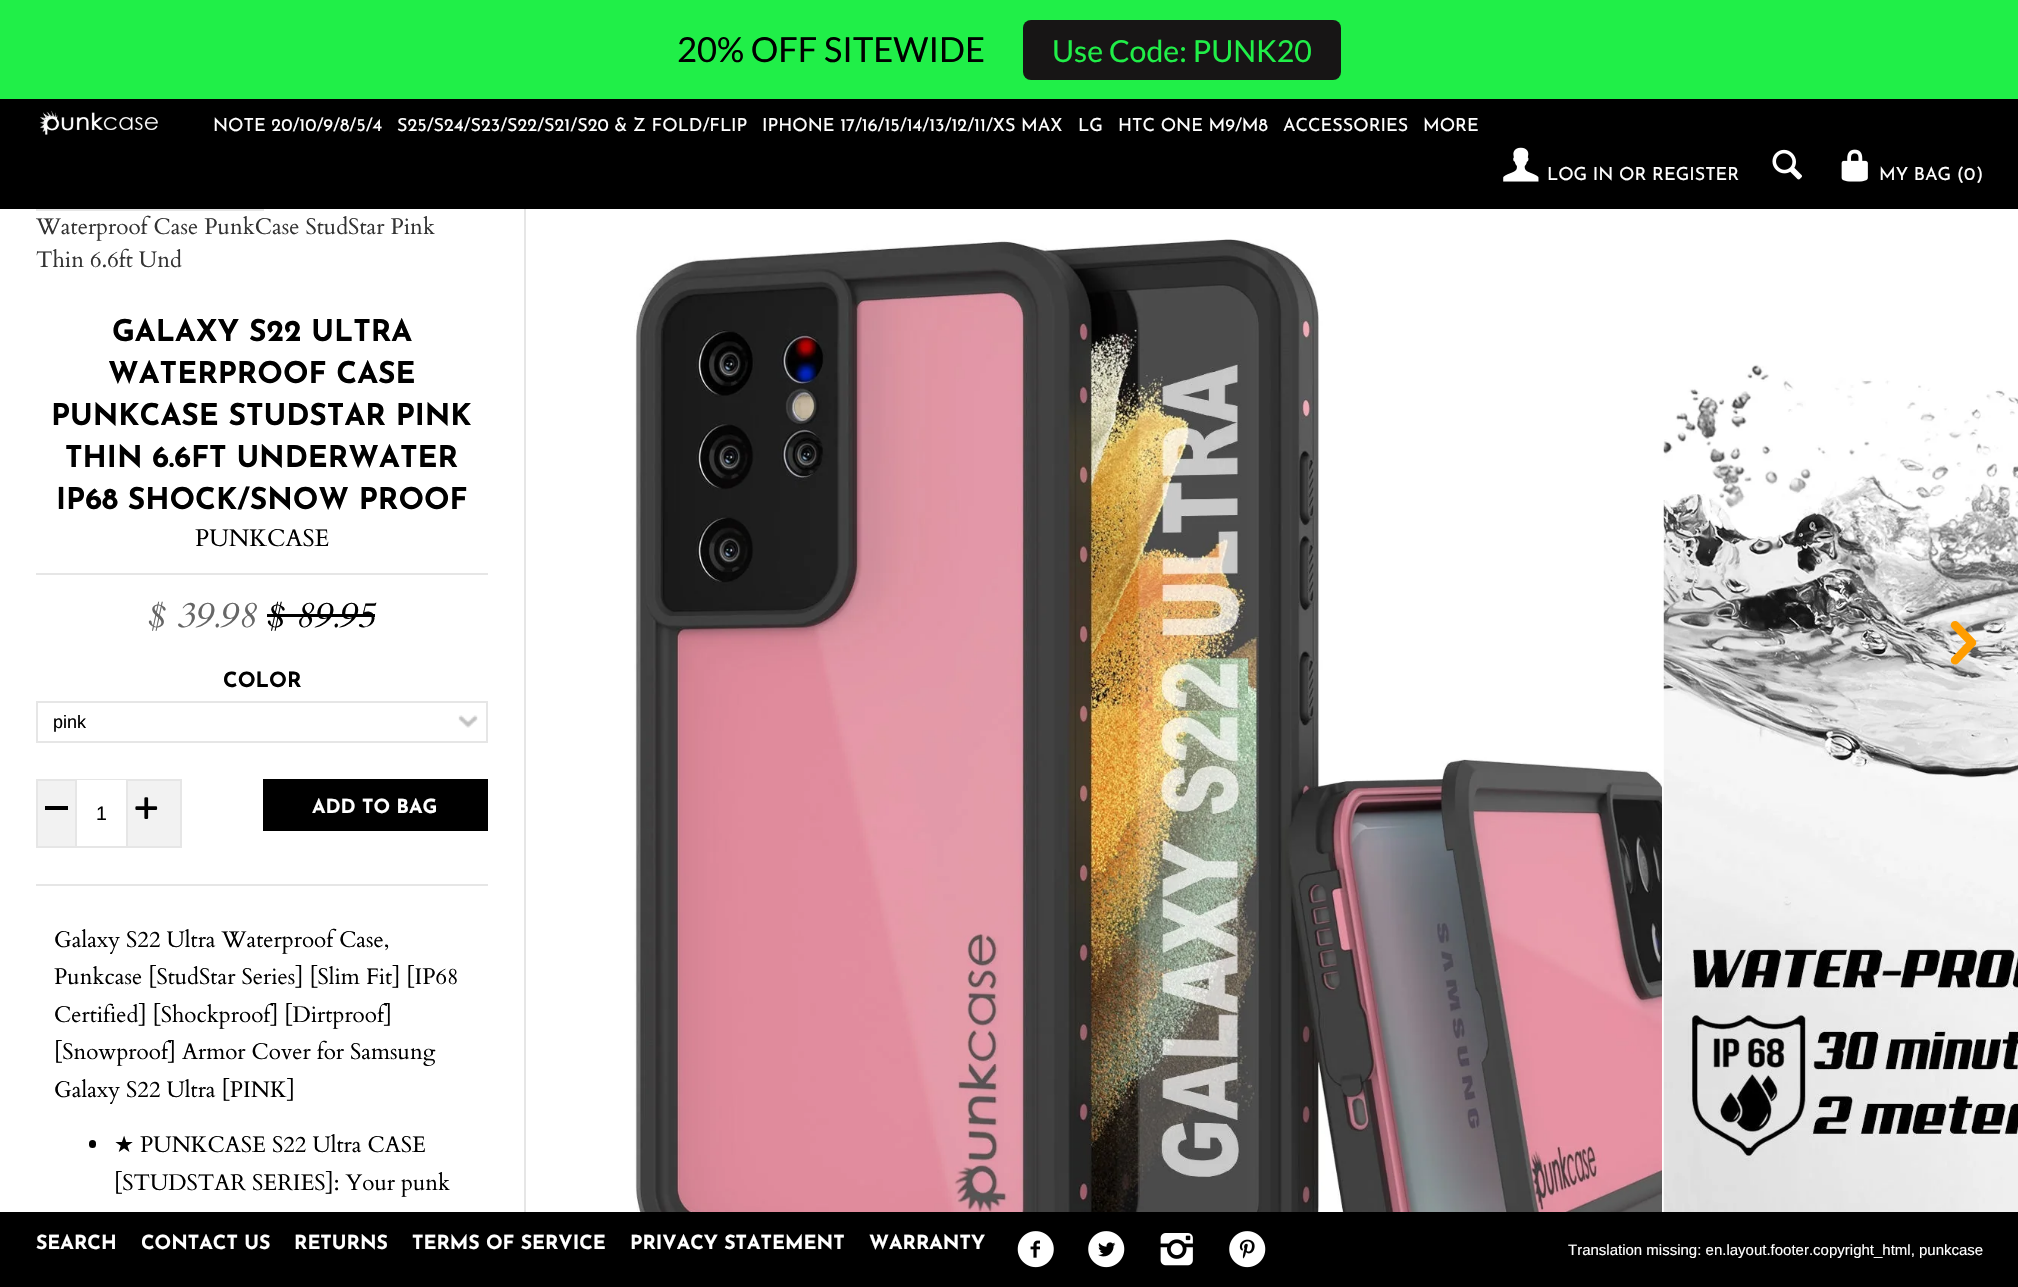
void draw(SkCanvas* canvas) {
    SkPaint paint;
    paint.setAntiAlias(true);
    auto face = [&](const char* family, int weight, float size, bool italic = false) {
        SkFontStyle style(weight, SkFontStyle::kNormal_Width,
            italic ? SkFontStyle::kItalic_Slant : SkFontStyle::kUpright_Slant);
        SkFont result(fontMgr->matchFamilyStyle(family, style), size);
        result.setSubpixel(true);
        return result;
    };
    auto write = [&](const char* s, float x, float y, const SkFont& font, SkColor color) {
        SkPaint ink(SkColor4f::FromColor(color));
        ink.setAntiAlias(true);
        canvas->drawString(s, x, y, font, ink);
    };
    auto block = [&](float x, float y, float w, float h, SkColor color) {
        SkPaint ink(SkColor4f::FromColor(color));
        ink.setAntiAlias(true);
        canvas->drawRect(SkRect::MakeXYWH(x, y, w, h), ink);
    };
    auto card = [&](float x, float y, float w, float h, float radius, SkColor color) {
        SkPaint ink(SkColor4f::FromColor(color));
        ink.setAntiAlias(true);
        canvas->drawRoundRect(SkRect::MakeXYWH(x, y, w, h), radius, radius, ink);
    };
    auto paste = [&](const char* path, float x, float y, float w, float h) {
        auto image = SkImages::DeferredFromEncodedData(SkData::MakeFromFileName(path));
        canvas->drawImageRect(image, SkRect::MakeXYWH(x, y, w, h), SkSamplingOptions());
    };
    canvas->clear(SK_ColorWHITE);
    block(0, 0, 2018, 99, SkColorSetRGB(32, 239, 72));
    auto kFont1 = face("Lato", 400, 34.5f);
    write("20% OFF SITEWIDE", 677, 62, kFont1, SK_ColorBLACK);
    card(1023, 20, 318, 60, 8, SkColorSetRGB(23, 21, 21));
    auto kFont2 = face("Lato", 400, 30.25f);
    write("Use Code: PUNK20", 1052, 62, kFont2, SkColorSetRGB(32, 239, 72));
    block(0, 99, 2018, 110, SK_ColorBLACK);
    paste("pic1.png", 39, 110, 119, 25);
    auto kFont3 = face("Josefin Sans", 400, 18);
    write("NOTE 20/10/9/8/5/4", 213, 131, kFont3, SK_ColorWHITE);
    write("S25/S24/S23/S22/S21/S20 & Z FOLD/FLIP", 397, 131, kFont3, SK_ColorWHITE);
    write("IPHONE 17/16/15/14/13/12/11/XS MAX", 762, 131, kFont3, SK_ColorWHITE);
    write("LG", 1078, 131, kFont3, SK_ColorWHITE);
    write("HTC ONE M9/M8", 1118, 131, kFont3, SK_ColorWHITE);
    write("ACCESSORIES", 1283, 131, kFont3, SK_ColorWHITE);
    write("MORE", 1423, 131, kFont3, SK_ColorWHITE);
    paste("pic2.png", 1503, 147, 36, 35);
    write("LOG IN OR REGISTER", 1547, 180, kFont3, SK_ColorWHITE);
    paste("pic3.png", 1772, 149, 30, 31);
    paste("pic4.png", 1841, 149, 27, 33);
    write("MY BAG (0", 1879, 180, kFont3, SK_ColorWHITE);
    write(")", 1976, 180, kFont3, SK_ColorWHITE);
    block(524, 209, 2, 1003, SkColorSetRGB(230, 230, 230));
    block(36, 209, 228, 2, SkColorSetRGB(230, 230, 230));
    auto kFont4 = face("Cardo", 400, 22.5f);
    write("Waterproof Case PunkCase StudStar Pink", 36, 234, kFont4, SkColorSetRGB(51, 51, 51));
    write("Thin 6.6ft Und", 36, 267, kFont4, SkColorSetRGB(51, 51, 51));
    auto kFont5 = face("Josefin Sans", 700, 30);
    write("GALAXY S22 ULTRA", 112, 341, kFont5, SK_ColorBLACK);
    write("WATERPROOF CASE", 108, 383, kFont5, SK_ColorBLACK);
    write("PUNKCASE STUDSTAR PINK", 51, 425, kFont5, SK_ColorBLACK);
    write("THIN 6.6FT UNDERWATER", 65, 467, kFont5, SK_ColorBLACK);
    write("IP68 SHOCK/SNOW PROOF", 56, 509, kFont5, SK_ColorBLACK);
    block(36, 573, 452, 2, SkColorSetRGB(230, 230, 230));
    auto kFont6 = face("Cardo", 400, 24);
    write("PUNKCASE", 195, 546, kFont6, SK_ColorBLACK);
    auto kFont7 = face("Cardo", 400, 36, true);
    write("$ 39.98", 148, 627, kFont7, SkColorSetRGB(102, 102, 102));
    write("$ 89.95", 267, 627, kFont7, SK_ColorBLACK);
    block(267, 614, 108, 3, SK_ColorBLACK);
    auto kFont8 = face("Josefin Sans", 700, 21);
    write("COLOR", 223, 687, kFont8, SK_ColorBLACK);
    paste("pic5.png", 458, 715, 20, 13);
    paint.setStyle(SkPaint::kStroke_Style);
    paint.setStrokeWidth(2);
    paint.setColor(SkColorSetRGB(230, 230, 230));
    canvas->drawRect(SkRect::MakeXYWH(37, 702, 450, 40), paint);
    auto kFont9 = face("Liberation Sans", 400, 18);
    write("pink", 53, 728, kFont9, SK_ColorBLACK);
    paint.setStyle(SkPaint::kFill_Style);
    paint.setColor(SkColorSetRGB(242, 242, 242));
    canvas->drawRect(SkRect::MakeXYWH(37, 780, 144, 67), paint);
    paint.setStyle(SkPaint::kStroke_Style);
    paint.setColor(SkColorSetRGB(230, 230, 230));
    canvas->drawRect(SkRect::MakeXYWH(37, 780, 144, 67), paint);
    block(45, 806, 23, 4, SK_ColorBLACK);
    block(77, 780, 49, 66, SK_ColorWHITE);
    block(126, 780, 2, 66, SkColorSetRGB(230, 230, 230));
    block(75, 780, 2, 66, SkColorSetRGB(230, 230, 230));
    auto kFont10 = face("Liberation Sans", 400, 19.5f);
    write("1", 96, 820, kFont10, SK_ColorBLACK);
    paste("pic6.png", 135, 797, 23, 22);
    block(263, 779, 225, 52, SK_ColorBLACK);
    auto kFont11 = face("Josefin Sans", 700, 19.5f);
    write("ADD TO BAG", 312, 813, kFont11, SK_ColorWHITE);
    block(36, 884, 452, 2, SkColorSetRGB(230, 230, 230));
    write("Galaxy S22 Ultra Waterproof Case,", 54, 947, kFont4, SK_ColorBLACK);
    write("Punkcase [StudStar Series] [Slim Fit] [IP68", 54, 984, kFont4, SK_ColorBLACK);
    write("Certified] [Shockproof] [Dirtproof]", 54, 1022, kFont4, SK_ColorBLACK);
    write("[Snowproof] Armor Cover for Samsung", 54, 1059, kFont4, SK_ColorBLACK);
    write("Galaxy S22 Ultra [PINK]", 54, 1097, kFont4, SK_ColorBLACK);
    card(89, 1140, 7, 8, 3.5f, SK_ColorBLACK);
    auto kFont12 = face("DejaVu Sans", 400, 22.5f);
    write("★", 114, 1152, kFont12, SK_ColorBLACK);
    write("PUNKCASE S22 Ultra CASE", 140, 1152, kFont4, SK_ColorBLACK);
    write("[STUDSTAR SERIES]: Your punk", 114, 1190, kFont4, SK_ColorBLACK);
    paste("pic7.png", 634, 239, 1028, 973);
    paste("pic8.png", 1663, 364, 355, 848);
    paste("pic9.png", 1950, 621, 27, 44);
    block(0, 1212, 2018, 75, SK_ColorBLACK);
    write("SEARCH", 36, 1249, kFont11, SK_ColorWHITE);
    write("CONTACT US", 141, 1249, kFont11, SK_ColorWHITE);
    write("RETURNS", 294, 1249, kFont11, SK_ColorWHITE);
    write("TERMS OF SERVICE", 412, 1249, kFont11, SK_ColorWHITE);
    write("PRIVACY STATEMENT", 630, 1249, kFont11, SK_ColorWHITE);
    write("WARRANTY", 869, 1249, kFont11, SK_ColorWHITE);
    paste("pic10.png", 1017, 1231, 37, 37);
    paste("pic11.png", 1088, 1231, 37, 37);
    paste("pic12.png", 1160, 1233, 33, 33);
    paste("pic13.png", 1229, 1231, 37, 37);
    auto kFont13 = face("Liberation Sans", 400, 15);
    write("Translation missing: en.layout.footer.copyright_html, punkcase", 1568, 1255, kFont13, SK_ColorWHITE);
}
